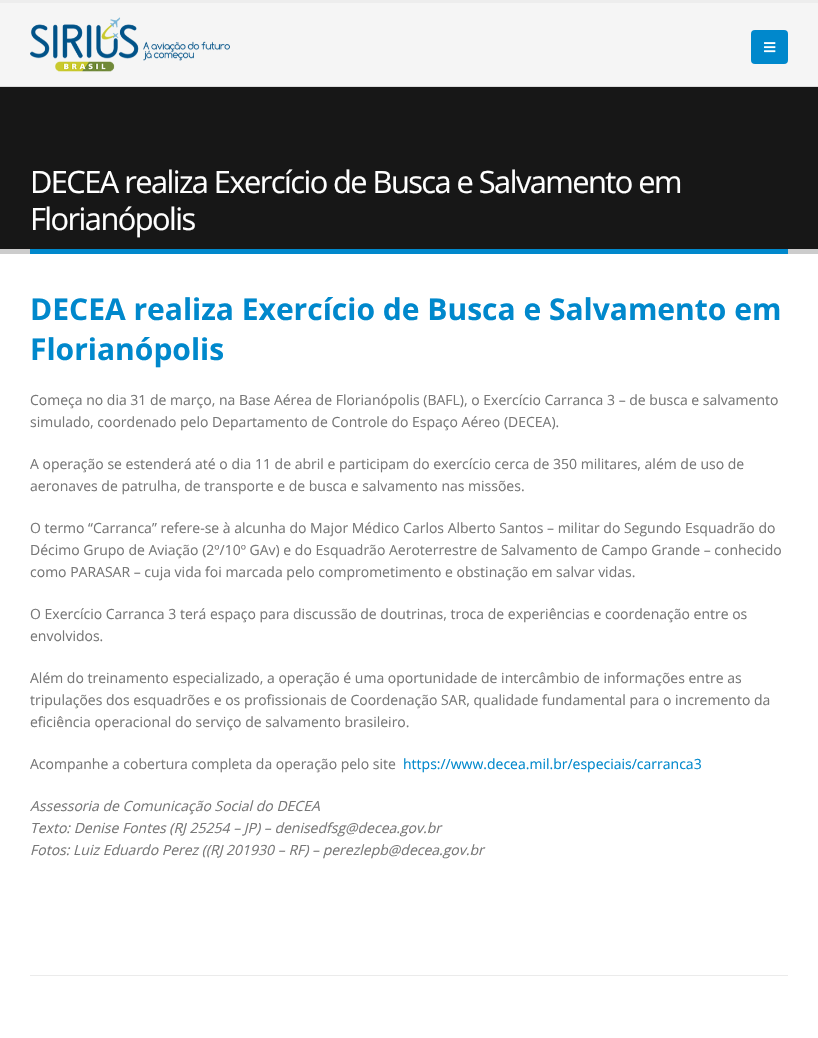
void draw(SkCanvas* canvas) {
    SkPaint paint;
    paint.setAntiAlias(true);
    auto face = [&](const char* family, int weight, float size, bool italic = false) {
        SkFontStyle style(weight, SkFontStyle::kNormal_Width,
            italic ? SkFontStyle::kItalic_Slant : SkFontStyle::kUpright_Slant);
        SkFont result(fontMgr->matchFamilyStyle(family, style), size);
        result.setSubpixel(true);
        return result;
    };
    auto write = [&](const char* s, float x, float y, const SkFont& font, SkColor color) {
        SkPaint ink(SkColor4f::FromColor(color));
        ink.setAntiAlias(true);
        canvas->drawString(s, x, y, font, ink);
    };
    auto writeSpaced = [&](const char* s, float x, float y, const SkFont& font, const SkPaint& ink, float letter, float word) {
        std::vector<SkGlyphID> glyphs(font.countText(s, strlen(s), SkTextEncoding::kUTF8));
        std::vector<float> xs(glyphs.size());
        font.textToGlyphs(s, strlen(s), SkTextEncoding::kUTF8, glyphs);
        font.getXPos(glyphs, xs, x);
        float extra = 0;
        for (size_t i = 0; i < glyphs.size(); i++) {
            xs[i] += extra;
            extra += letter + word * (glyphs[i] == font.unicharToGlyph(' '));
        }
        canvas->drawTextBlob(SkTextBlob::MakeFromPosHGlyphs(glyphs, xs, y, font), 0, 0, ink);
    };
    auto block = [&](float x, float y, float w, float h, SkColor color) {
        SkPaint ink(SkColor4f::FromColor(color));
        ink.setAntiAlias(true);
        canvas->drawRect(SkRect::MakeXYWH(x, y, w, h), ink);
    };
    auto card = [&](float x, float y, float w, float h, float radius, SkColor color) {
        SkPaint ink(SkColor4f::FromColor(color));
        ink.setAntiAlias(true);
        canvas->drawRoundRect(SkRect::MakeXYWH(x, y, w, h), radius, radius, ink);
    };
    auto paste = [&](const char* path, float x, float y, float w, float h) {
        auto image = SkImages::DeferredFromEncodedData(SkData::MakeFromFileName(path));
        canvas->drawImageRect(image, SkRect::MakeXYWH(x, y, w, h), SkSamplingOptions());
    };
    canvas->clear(SK_ColorWHITE);
    block(0, 3, 818, 83, SkColorSetRGB(245, 245, 245));
    block(0, 0, 818, 3, SkColorSetRGB(237, 237, 237));
    block(0, 86, 818, 1, SkColorSetRGB(220, 220, 220));
    paste("pic1.png", 30, 17, 200, 55);
    card(751, 30, 37, 34, 4, SkColorSetRGB(0, 136, 204));
    paste("pic2.png", 764, 42, 12, 11);
    block(0, 87, 818, 162, SkColorSetRGB(23, 23, 23));
    block(0, 249, 818, 5, SkColorSetRGB(204, 204, 204));
    auto kFont1 = face("Open Sans", 400, 30.8f);
    paint.setColor(SK_ColorWHITE);
    writeSpaced("DECEA realiza Exercício de Busca e Salvamento em", 30, 193, kFont1, paint, -1.55f, 0);
    writeSpaced("Florianópolis", 30, 230, kFont1, paint, -1.55f, 0);
    block(30, 249, 758, 5, SkColorSetRGB(0, 136, 204));
    auto kFont2 = face("Open Sans", 700, 30);
    write("DECEA realiza Exercício de Busca e Salvamento em", 30, 320, kFont2, SkColorSetRGB(0, 136, 204));
    write("Florianópolis", 30, 360, kFont2, SkColorSetRGB(0, 136, 204));
    auto kFont3 = face("Open Sans", 400, 14);
    write("Começa no dia 31 de março, na Base Aérea de Florianópolis (BAFL), o Exercício Carranca 3 – de busca e salvamento", 30, 405, kFont3, SkColorSetRGB(119, 119, 119));
    write("simulado, coordenado pelo Departamento de Controle do Espaço Aéreo (DECEA).", 30, 427, kFont3, SkColorSetRGB(119, 119, 119));
    write("A operação se estenderá até o dia 11 de abril e participam do exercício cerca de 350 militares, além de uso de", 30, 469, kFont3, SkColorSetRGB(119, 119, 119));
    write("aeronaves de patrulha, de transporte e de busca e salvamento nas missões.", 30, 491, kFont3, SkColorSetRGB(119, 119, 119));
    write("O termo “Carranca” refere-se à alcunha do Major Médico Carlos Alberto Santos – militar do Segundo Esquadrão do", 30, 533, kFont3, SkColorSetRGB(119, 119, 119));
    write("Décimo Grupo de Aviação (2º/10º GAv) e do Esquadrão Aeroterrestre de Salvamento de Campo Grande – conhecido", 30, 555, kFont3, SkColorSetRGB(119, 119, 119));
    write("como PARASAR – cuja vida foi marcada pelo comprometimento e obstinação em salvar vidas.", 30, 577, kFont3, SkColorSetRGB(119, 119, 119));
    write("O Exercício Carranca 3 terá espaço para discussão de doutrinas, troca de experiências e coordenação entre os", 30, 619, kFont3, SkColorSetRGB(119, 119, 119));
    write("envolvidos.", 30, 641, kFont3, SkColorSetRGB(119, 119, 119));
    write("Além do treinamento especializado, a operação é uma oportunidade de intercâmbio de informações entre as", 30, 683, kFont3, SkColorSetRGB(119, 119, 119));
    write("tripulações dos esquadrões e os profissionais de Coordenação SAR, qualidade fundamental para o incremento da", 30, 705, kFont3, SkColorSetRGB(119, 119, 119));
    write("eficiência operacional do serviço de salvamento brasileiro.", 30, 727, kFont3, SkColorSetRGB(119, 119, 119));
    write("Acompanhe a cobertura completa da operação pelo site", 30, 769, kFont3, SkColorSetRGB(119, 119, 119));
    write("https://www.decea.mil.br/especiais/carranca3", 403, 769, kFont3, SkColorSetRGB(0, 136, 204));
    auto kFont4 = face("Open Sans", 400, 14, true);
    write("Assessoria de Comunicação Social do DECEA", 30, 811, kFont4, SkColorSetRGB(119, 119, 119));
    write("Texto: Denise Fontes (RJ 25254 – JP) – denisedfsg@decea.gov.br", 30, 833, kFont4, SkColorSetRGB(119, 119, 119));
    write("Fotos: Luiz Eduardo Perez ((RJ 201930 – RF) – perezlepb@decea.gov.br", 30, 855, kFont4, SkColorSetRGB(119, 119, 119));
    block(30, 975, 758, 1, SkColorSetRGB(235, 235, 235));
}
